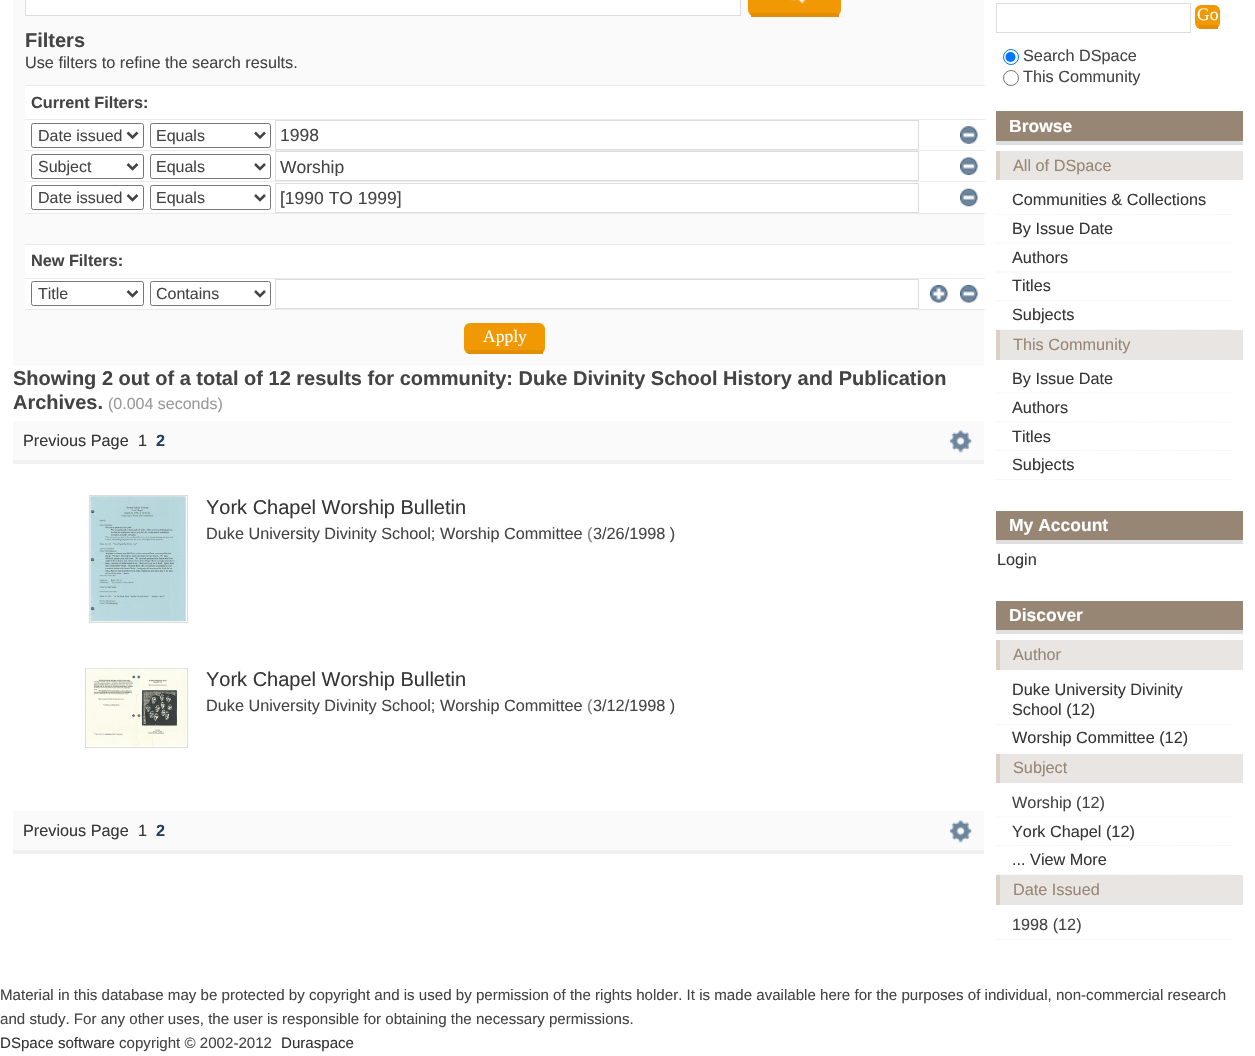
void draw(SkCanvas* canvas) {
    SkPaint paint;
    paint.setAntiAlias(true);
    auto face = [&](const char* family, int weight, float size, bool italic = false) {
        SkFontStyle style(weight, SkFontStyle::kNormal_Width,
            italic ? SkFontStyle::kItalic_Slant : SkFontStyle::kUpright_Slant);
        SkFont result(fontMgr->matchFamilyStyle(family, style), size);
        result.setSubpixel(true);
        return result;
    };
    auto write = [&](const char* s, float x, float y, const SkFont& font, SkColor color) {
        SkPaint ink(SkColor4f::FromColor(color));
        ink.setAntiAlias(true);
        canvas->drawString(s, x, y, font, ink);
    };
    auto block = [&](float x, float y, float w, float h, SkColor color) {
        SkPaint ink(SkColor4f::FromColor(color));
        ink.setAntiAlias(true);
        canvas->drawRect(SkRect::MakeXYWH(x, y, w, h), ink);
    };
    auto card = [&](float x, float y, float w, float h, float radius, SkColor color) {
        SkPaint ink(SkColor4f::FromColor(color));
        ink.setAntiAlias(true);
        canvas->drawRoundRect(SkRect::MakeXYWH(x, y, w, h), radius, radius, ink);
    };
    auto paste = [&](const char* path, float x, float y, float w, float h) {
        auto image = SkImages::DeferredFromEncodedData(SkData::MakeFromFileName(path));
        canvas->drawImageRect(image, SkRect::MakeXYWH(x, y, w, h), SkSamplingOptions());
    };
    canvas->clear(SK_ColorWHITE);
    block(13, 0, 971, 366, SkColorSetRGB(250, 250, 250));
    paint.setColor(SK_ColorWHITE);
    canvas->drawRect(SkRect::MakeXYWH(25.5f, -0.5f, 715, 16), paint);
    paint.setStyle(SkPaint::kStroke_Style);
    paint.setStrokeWidth(1);
    paint.setColor(SkColorSetRGB(220, 220, 220));
    canvas->drawRect(SkRect::MakeXYWH(25.5f, -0.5f, 715, 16), paint);
    card(748, -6, 93, 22, 6, SkColorSetRGB(240, 153, 5));
    paste("pic1.png", 790, 0, 16, 4);
    block(751, 13, 88, 4, SkColorSetRGB(225, 144, 5));
    auto kFont1 = face("Liberation Sans", 700, 20);
    write("Filters", 25, 47, kFont1, SkColorSetRGB(68, 68, 68));
    auto kFont2 = face("Liberation Sans", 400, 16.25f);
    write("Use filters to refine the search results.", 25, 68, kFont2, SkColorSetRGB(68, 68, 68));
    block(25, 86, 959, 223, SK_ColorWHITE);
    block(25, 85, 960, 1, SkColorSetRGB(235, 235, 235));
    auto kFont3 = face("Liberation Sans", 700, 16.25f);
    write("Current Filters:", 31, 108, kFont3, SkColorSetRGB(68, 68, 68));
    block(25, 119, 960, 1, SkColorSetRGB(235, 235, 235));
    paint.setColor(SkColorSetRGB(118, 118, 118));
    canvas->drawRoundRect(SkRect::MakeXYWH(31.5f, 123.5f, 112, 24), 2, 2, paint);
    paint.setStrokeWidth(2.5f);
    paint.setColor(SkColorSetRGB(68, 68, 68));
    canvas->drawPath(SkPathBuilder().moveTo(127.5f, 132.5f).lineTo(132.5f, 137.5f).lineTo(137.5f, 132.5f).detach(), paint);
    auto kFont4 = face("Liberation Sans", 400, 16);
    write("Date issued", 38, 141, kFont4, SkColorSetRGB(68, 68, 68));
    paint.setStrokeWidth(1);
    paint.setColor(SkColorSetRGB(118, 118, 118));
    canvas->drawRoundRect(SkRect::MakeXYWH(150.5f, 123.5f, 120, 24), 2, 2, paint);
    paint.setStrokeWidth(2.5f);
    paint.setColor(SkColorSetRGB(68, 68, 68));
    canvas->drawPath(SkPathBuilder().moveTo(255, 132.5f).lineTo(260, 137.5f).lineTo(265, 132.5f).detach(), paint);
    write("Equals", 156, 141, kFont4, SkColorSetRGB(68, 68, 68));
    paint.setStrokeWidth(1);
    paint.setColor(SkColorSetRGB(220, 220, 220));
    canvas->drawRect(SkRect::MakeXYWH(275.5f, 120.5f, 643, 29), paint);
    auto kFont5 = face("Liberation Sans", 400, 17.5f);
    write("1998", 280, 141, kFont5, SkColorSetRGB(68, 68, 68));
    paste("pic2.png", 960, 126, 18, 18);
    block(25, 150, 960, 1, SkColorSetRGB(235, 235, 235));
    paint.setColor(SkColorSetRGB(118, 118, 118));
    canvas->drawRoundRect(SkRect::MakeXYWH(31.5f, 154.5f, 112, 24), 2, 2, paint);
    paint.setStrokeWidth(2.5f);
    paint.setColor(SkColorSetRGB(68, 68, 68));
    canvas->drawPath(SkPathBuilder().moveTo(127.5f, 164).lineTo(132.5f, 169).lineTo(137.5f, 164).detach(), paint);
    write("Subject", 38, 172, kFont4, SkColorSetRGB(68, 68, 68));
    paint.setStrokeWidth(1);
    paint.setColor(SkColorSetRGB(118, 118, 118));
    canvas->drawRoundRect(SkRect::MakeXYWH(150.5f, 154.5f, 120, 24), 2, 2, paint);
    paint.setStrokeWidth(2.5f);
    paint.setColor(SkColorSetRGB(68, 68, 68));
    canvas->drawPath(SkPathBuilder().moveTo(255, 164).lineTo(260, 169).lineTo(265, 164).detach(), paint);
    write("Equals", 156, 172, kFont4, SkColorSetRGB(68, 68, 68));
    paint.setStrokeWidth(1);
    paint.setColor(SkColorSetRGB(220, 220, 220));
    canvas->drawRect(SkRect::MakeXYWH(275.5f, 151.5f, 643, 29), paint);
    canvas->save();
    canvas->clipRect(SkRect::MakeXYWH(280, 156, 634, 20));
    write("Worship", 280, 173, kFont5, SkColorSetRGB(68, 68, 68));
    canvas->restore();
    paste("pic3.png", 960, 157, 18, 18);
    block(25, 181, 960, 1, SkColorSetRGB(235, 235, 235));
    paint.setColor(SkColorSetRGB(118, 118, 118));
    canvas->drawRoundRect(SkRect::MakeXYWH(31.5f, 185.5f, 112, 24), 2, 2, paint);
    paint.setStrokeWidth(2.5f);
    paint.setColor(SkColorSetRGB(68, 68, 68));
    canvas->drawPath(SkPathBuilder().moveTo(127.5f, 195).lineTo(132.5f, 200).lineTo(137.5f, 195).detach(), paint);
    write("Date issued", 38, 203, kFont4, SkColorSetRGB(68, 68, 68));
    paint.setStrokeWidth(1);
    paint.setColor(SkColorSetRGB(118, 118, 118));
    canvas->drawRoundRect(SkRect::MakeXYWH(150.5f, 185.5f, 120, 24), 2, 2, paint);
    paint.setStrokeWidth(2.5f);
    paint.setColor(SkColorSetRGB(68, 68, 68));
    canvas->drawPath(SkPathBuilder().moveTo(255, 195).lineTo(260, 200).lineTo(265, 195).detach(), paint);
    write("Equals", 156, 203, kFont4, SkColorSetRGB(68, 68, 68));
    paint.setStrokeWidth(1);
    paint.setColor(SkColorSetRGB(220, 220, 220));
    canvas->drawRect(SkRect::MakeXYWH(275.5f, 183.5f, 643, 29), paint);
    write("[1990 TO 1999]", 280, 204, kFont5, SkColorSetRGB(68, 68, 68));
    paste("pic4.png", 960, 188, 18, 19);
    block(25, 214, 959, 30, SkColorSetRGB(250, 250, 250));
    block(25, 213, 960, 1, SkColorSetRGB(235, 235, 235));
    block(25, 244, 960, 1, SkColorSetRGB(235, 235, 235));
    write("New Filters:", 31, 266, kFont3, SkColorSetRGB(68, 68, 68));
    block(25, 278, 960, 1, SkColorSetRGB(235, 235, 235));
    paint.setColor(SkColorSetRGB(118, 118, 118));
    canvas->drawRoundRect(SkRect::MakeXYWH(31.5f, 281.5f, 112, 24), 2, 2, paint);
    paint.setStrokeWidth(2.5f);
    paint.setColor(SkColorSetRGB(68, 68, 68));
    canvas->drawPath(SkPathBuilder().moveTo(127.5f, 291).lineTo(132.5f, 296).lineTo(137.5f, 291).detach(), paint);
    write("Title", 38, 299, kFont4, SkColorSetRGB(68, 68, 68));
    paint.setStrokeWidth(1);
    paint.setColor(SkColorSetRGB(118, 118, 118));
    canvas->drawRoundRect(SkRect::MakeXYWH(150.5f, 281.5f, 120, 24), 2, 2, paint);
    paint.setStrokeWidth(2.5f);
    paint.setColor(SkColorSetRGB(68, 68, 68));
    canvas->drawPath(SkPathBuilder().moveTo(255, 291).lineTo(260, 296).lineTo(265, 291).detach(), paint);
    write("Contains", 156, 299, kFont4, SkColorSetRGB(68, 68, 68));
    paint.setStrokeWidth(1);
    paint.setColor(SkColorSetRGB(220, 220, 220));
    canvas->drawRect(SkRect::MakeXYWH(275.5f, 279.5f, 643, 29), paint);
    paste("pic5.png", 930, 285, 18, 18);
    paste("pic6.png", 960, 285, 18, 18);
    block(25, 309, 960, 1, SkColorSetRGB(235, 235, 235));
    card(464, 323, 81, 31, 6, SkColorSetRGB(240, 153, 5));
    block(468, 350, 75, 4, SkColorSetRGB(225, 144, 5));
    auto kFont6 = face("Liberation Serif", 400, 17.5f);
    write("Apply", 483, 342, kFont6, SK_ColorWHITE);
    write("Showing 2 out of a total of 12 results for community: Duke Divinity School History and Publication", 13, 385, kFont1, SkColorSetRGB(68, 68, 68));
    write("Archives.", 13, 409, kFont1, SkColorSetRGB(68, 68, 68));
    write("(0.004 seconds)", 108, 409, kFont4, SkColorSetRGB(153, 153, 153));
    block(13, 421, 971, 39, SkColorSetRGB(250, 250, 250));
    block(13, 460, 971, 4, SkColorSetRGB(241, 241, 241));
    write("Previous Page", 23, 446, kFont2, SkColorSetRGB(54, 54, 54));
    write("1", 138, 446, kFont2, SkColorSetRGB(54, 54, 54));
    write("2", 156, 446, kFont3, SkColorSetRGB(31, 63, 94));
    paste("pic7.png", 949, 430, 23, 23);
    canvas->drawRect(SkRect::MakeXYWH(89.5f, 495.5f, 98, 127), paint);
    paste("pic8.png", 90, 496, 96, 126);
    auto kFont7 = face("Liberation Sans", 400, 20);
    write("York Chapel Worship Bulletin", 206, 514, kFont7, SkColorSetRGB(54, 54, 54));
    write("Duke University Divinity School; Worship Committee", 206, 539, kFont2, SkColorSetRGB(68, 68, 68));
    write("(", 587, 539, kFont2, SkColorSetRGB(128, 128, 128));
    write("3/26/1998 )", 593, 539, kFont2, SkColorSetRGB(68, 68, 68));
    canvas->drawRect(SkRect::MakeXYWH(85.5f, 668.5f, 102, 79), paint);
    paste("pic9.png", 86, 668, 101, 78);
    write("York Chapel Worship Bulletin", 206, 686, kFont7, SkColorSetRGB(54, 54, 54));
    write("Duke University Divinity School; Worship Committee", 206, 711, kFont2, SkColorSetRGB(68, 68, 68));
    write("(", 587, 711, kFont2, SkColorSetRGB(128, 128, 128));
    write("3/12/1998 )", 593, 711, kFont2, SkColorSetRGB(68, 68, 68));
    block(13, 811, 971, 39, SkColorSetRGB(250, 250, 250));
    block(13, 850, 971, 4, SkColorSetRGB(241, 241, 241));
    write("Previous Page", 23, 836, kFont2, SkColorSetRGB(54, 54, 54));
    write("1", 138, 836, kFont2, SkColorSetRGB(54, 54, 54));
    write("2", 156, 836, kFont3, SkColorSetRGB(31, 63, 94));
    paste("pic7.png", 949, 820, 23, 23);
    canvas->drawRect(SkRect::MakeXYWH(996.5f, 3.5f, 194, 29), paint);
    card(1195, 5, 25, 24, 6, SkColorSetRGB(240, 153, 5));
    block(1199, 25, 19, 4, SkColorSetRGB(225, 144, 5));
    write("Go", 1197, 20, kFont6, SK_ColorWHITE);
    paint.setColor(SkColorSetRGB(0, 117, 255));
    canvas->drawCircle(1011, 57, 7.5f, paint);
    paint.setStyle(SkPaint::kFill_Style);
    canvas->drawCircle(1010.5f, 57, 5, paint);
    write("Search DSpace", 1023, 61, kFont2, SkColorSetRGB(68, 68, 68));
    paint.setStyle(SkPaint::kStroke_Style);
    paint.setColor(SkColorSetRGB(118, 118, 118));
    canvas->drawCircle(1011, 78, 7.5f, paint);
    write("This Community", 1023, 82, kFont2, SkColorSetRGB(68, 68, 68));
    block(996, 111, 247, 30, SkColorSetRGB(152, 134, 117));
    block(996, 141, 247, 4, SkColorSetRGB(223, 223, 223));
    auto kFont8 = face("Liberation Sans", 700, 17.5f);
    write("Browse", 1009, 132, kFont8, SK_ColorWHITE);
    block(1000, 151, 243, 29, SkColorSetRGB(232, 229, 226));
    block(996, 151, 4, 29, SkColorSetRGB(218, 208, 198));
    write("All of DSpace", 1013, 171, kFont2, SkColorSetRGB(152, 134, 117));
    paint.setStrokeWidth(1.2f);
    paint.setColor(SkColorSetRGB(241, 241, 241));
    paint.setPathEffect(SkDashPathEffect::Make({{1.25f, 1.25f}}, 0));
    canvas->drawPath(SkPathBuilder().moveTo(996, 214.5f).lineTo(1232.5f, 214.5f).detach(), paint);
    paint.setPathEffect(nullptr);
    write("Communities & Collections", 1012, 205, kFont2, SkColorSetRGB(54, 54, 54));
    paint.setPathEffect(SkDashPathEffect::Make({{1.25f, 1.25f}}, 0));
    canvas->drawPath(SkPathBuilder().moveTo(996, 243).lineTo(1232.5f, 243).detach(), paint);
    paint.setPathEffect(nullptr);
    write("By Issue Date", 1012, 234, kFont2, SkColorSetRGB(54, 54, 54));
    paint.setPathEffect(SkDashPathEffect::Make({{1.25f, 1.25f}}, 0));
    canvas->drawPath(SkPathBuilder().moveTo(996, 272).lineTo(1232.5f, 272).detach(), paint);
    paint.setPathEffect(nullptr);
    write("Authors", 1012, 263, kFont2, SkColorSetRGB(54, 54, 54));
    paint.setPathEffect(SkDashPathEffect::Make({{1.25f, 1.25f}}, 0));
    canvas->drawPath(SkPathBuilder().moveTo(996, 300.5f).lineTo(1232.5f, 300.5f).detach(), paint);
    paint.setPathEffect(nullptr);
    write("Titles", 1012, 291, kFont2, SkColorSetRGB(54, 54, 54));
    block(1000, 330, 243, 30, SkColorSetRGB(232, 229, 226));
    block(996, 330, 4, 30, SkColorSetRGB(218, 208, 198));
    paint.setPathEffect(SkDashPathEffect::Make({{1.25f, 1.25f}}, 0));
    canvas->drawPath(SkPathBuilder().moveTo(996, 329.5f).lineTo(1232.5f, 329.5f).detach(), paint);
    paint.setPathEffect(nullptr);
    write("Subjects", 1012, 320, kFont2, SkColorSetRGB(54, 54, 54));
    write("This Community", 1013, 350, kFont2, SkColorSetRGB(152, 134, 117));
    paint.setPathEffect(SkDashPathEffect::Make({{1.25f, 1.25f}}, 0));
    canvas->drawPath(SkPathBuilder().moveTo(996, 393).lineTo(1232.5f, 393).detach(), paint);
    paint.setPathEffect(nullptr);
    write("By Issue Date", 1012, 384, kFont2, SkColorSetRGB(54, 54, 54));
    paint.setPathEffect(SkDashPathEffect::Make({{1.25f, 1.25f}}, 0));
    canvas->drawPath(SkPathBuilder().moveTo(996, 422).lineTo(1232.5f, 422).detach(), paint);
    paint.setPathEffect(nullptr);
    write("Authors", 1012, 413, kFont2, SkColorSetRGB(54, 54, 54));
    paint.setPathEffect(SkDashPathEffect::Make({{1.25f, 1.25f}}, 0));
    canvas->drawPath(SkPathBuilder().moveTo(996, 450.5f).lineTo(1232.5f, 450.5f).detach(), paint);
    paint.setPathEffect(nullptr);
    write("Titles", 1012, 442, kFont2, SkColorSetRGB(54, 54, 54));
    paint.setPathEffect(SkDashPathEffect::Make({{1.25f, 1.25f}}, 0));
    canvas->drawPath(SkPathBuilder().moveTo(996, 479.5f).lineTo(1232.5f, 479.5f).detach(), paint);
    paint.setPathEffect(nullptr);
    write("Subjects", 1012, 470, kFont2, SkColorSetRGB(54, 54, 54));
    block(996, 511, 247, 29, SkColorSetRGB(152, 134, 117));
    block(996, 540, 247, 4, SkColorSetRGB(223, 223, 223));
    write("My Account", 1009, 531, kFont8, SK_ColorWHITE);
    write("Login", 997, 565, kFont2, SkColorSetRGB(54, 54, 54));
    block(996, 601, 247, 29, SkColorSetRGB(152, 134, 117));
    block(996, 630, 247, 4, SkColorSetRGB(223, 223, 223));
    write("Discover", 1009, 621, kFont8, SK_ColorWHITE);
    block(1000, 640, 243, 30, SkColorSetRGB(232, 229, 226));
    block(996, 640, 4, 30, SkColorSetRGB(218, 208, 198));
    write("Author", 1013, 660, kFont2, SkColorSetRGB(152, 134, 117));
    paint.setPathEffect(SkDashPathEffect::Make({{1.25f, 1.25f}}, 0));
    canvas->drawPath(SkPathBuilder().moveTo(996, 724.5f).lineTo(1232.5f, 724.5f).detach(), paint);
    paint.setPathEffect(nullptr);
    write("Duke University Divinity", 1012, 695, kFont2, SkColorSetRGB(54, 54, 54));
    write("School (12)", 1012, 715, kFont2, SkColorSetRGB(54, 54, 54));
    paint.setPathEffect(SkDashPathEffect::Make({{1.25f, 1.25f}}, 0));
    canvas->drawPath(SkPathBuilder().moveTo(996, 753).lineTo(1232.5f, 753).detach(), paint);
    paint.setPathEffect(nullptr);
    write("Worship Committee (12)", 1012, 743, kFont2, SkColorSetRGB(54, 54, 54));
    block(1000, 754, 243, 29, SkColorSetRGB(232, 229, 226));
    block(996, 754, 4, 29, SkColorSetRGB(218, 208, 198));
    write("Subject", 1013, 773, kFont2, SkColorSetRGB(152, 134, 117));
    paint.setPathEffect(SkDashPathEffect::Make({{1.25f, 1.25f}}, 0));
    canvas->drawPath(SkPathBuilder().moveTo(996, 817).lineTo(1232.5f, 817).detach(), paint);
    paint.setPathEffect(nullptr);
    write("Worship (12)", 1012, 808, kFont2, SkColorSetRGB(68, 68, 68));
    paint.setPathEffect(SkDashPathEffect::Make({{1.25f, 1.25f}}, 0));
    canvas->drawPath(SkPathBuilder().moveTo(996, 845.5f).lineTo(1232.5f, 845.5f).detach(), paint);
    paint.setPathEffect(nullptr);
    write("York Chapel (12)", 1012, 837, kFont2, SkColorSetRGB(54, 54, 54));
    block(1000, 875, 243, 30, SkColorSetRGB(232, 229, 226));
    block(996, 875, 4, 30, SkColorSetRGB(218, 208, 198));
    paint.setPathEffect(SkDashPathEffect::Make({{1.25f, 1.25f}}, 0));
    canvas->drawPath(SkPathBuilder().moveTo(996, 874.5f).lineTo(1232.5f, 874.5f).detach(), paint);
    paint.setPathEffect(nullptr);
    write("... View More", 1012, 865, kFont2, SkColorSetRGB(54, 54, 54));
    write("Date Issued", 1013, 895, kFont2, SkColorSetRGB(152, 134, 117));
    paint.setPathEffect(SkDashPathEffect::Make({{1.25f, 1.25f}}, 0));
    canvas->drawPath(SkPathBuilder().moveTo(996, 939.5f).lineTo(1232.5f, 939.5f).detach(), paint);
    paint.setPathEffect(nullptr);
    write("1998 (12)", 1012, 930, kFont2, SkColorSetRGB(68, 68, 68));
    auto kFont9 = face("Liberation Sans", 400, 15.1f);
    write("Material in this database may be protected by copyright and is used by permission of the rights holder. It is made available here for the purposes of individual, non-commercial research", 0, 1000, kFont9, SkColorSetRGB(68, 68, 68));
    write("and study. For any other uses, the user is responsible for obtaining the necessary permissions.", 0, 1024, kFont9, SkColorSetRGB(68, 68, 68));
    write("DSpace software", 0, 1048, kFont9, SkColorSetRGB(54, 54, 54));
    write("copyright © 2002-2012", 119, 1048, kFont9, SkColorSetRGB(68, 68, 68));
    write("Duraspace", 281, 1048, kFont9, SkColorSetRGB(54, 54, 54));
}
